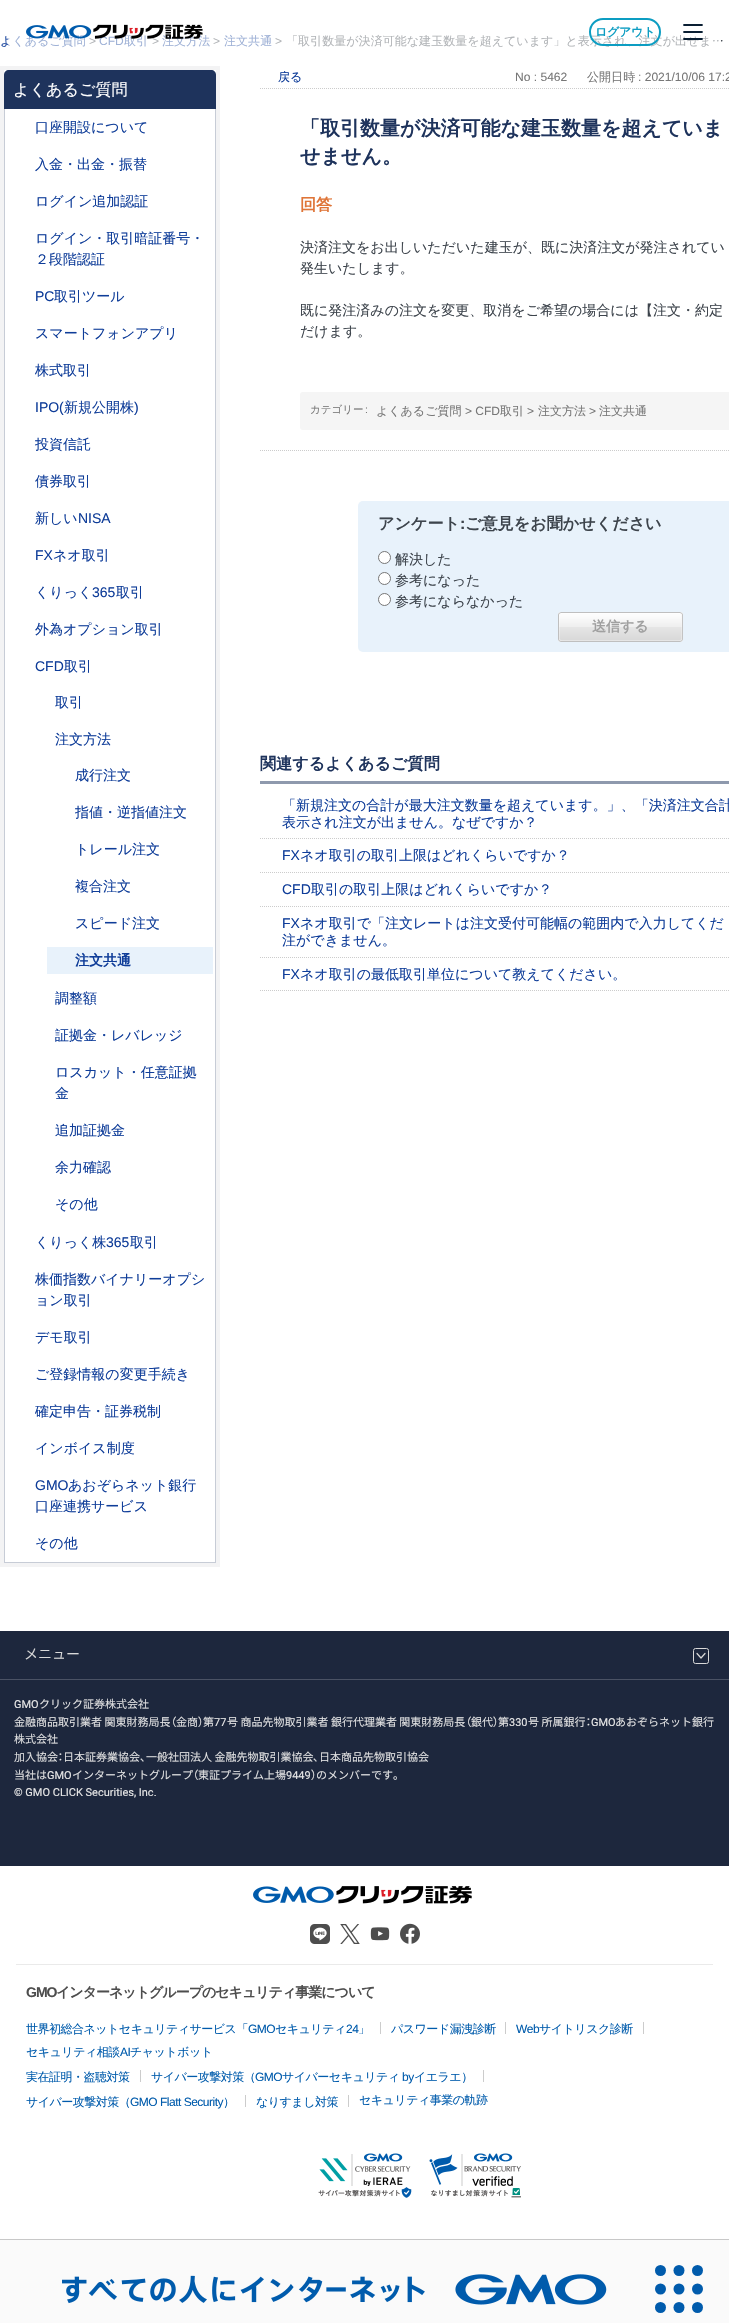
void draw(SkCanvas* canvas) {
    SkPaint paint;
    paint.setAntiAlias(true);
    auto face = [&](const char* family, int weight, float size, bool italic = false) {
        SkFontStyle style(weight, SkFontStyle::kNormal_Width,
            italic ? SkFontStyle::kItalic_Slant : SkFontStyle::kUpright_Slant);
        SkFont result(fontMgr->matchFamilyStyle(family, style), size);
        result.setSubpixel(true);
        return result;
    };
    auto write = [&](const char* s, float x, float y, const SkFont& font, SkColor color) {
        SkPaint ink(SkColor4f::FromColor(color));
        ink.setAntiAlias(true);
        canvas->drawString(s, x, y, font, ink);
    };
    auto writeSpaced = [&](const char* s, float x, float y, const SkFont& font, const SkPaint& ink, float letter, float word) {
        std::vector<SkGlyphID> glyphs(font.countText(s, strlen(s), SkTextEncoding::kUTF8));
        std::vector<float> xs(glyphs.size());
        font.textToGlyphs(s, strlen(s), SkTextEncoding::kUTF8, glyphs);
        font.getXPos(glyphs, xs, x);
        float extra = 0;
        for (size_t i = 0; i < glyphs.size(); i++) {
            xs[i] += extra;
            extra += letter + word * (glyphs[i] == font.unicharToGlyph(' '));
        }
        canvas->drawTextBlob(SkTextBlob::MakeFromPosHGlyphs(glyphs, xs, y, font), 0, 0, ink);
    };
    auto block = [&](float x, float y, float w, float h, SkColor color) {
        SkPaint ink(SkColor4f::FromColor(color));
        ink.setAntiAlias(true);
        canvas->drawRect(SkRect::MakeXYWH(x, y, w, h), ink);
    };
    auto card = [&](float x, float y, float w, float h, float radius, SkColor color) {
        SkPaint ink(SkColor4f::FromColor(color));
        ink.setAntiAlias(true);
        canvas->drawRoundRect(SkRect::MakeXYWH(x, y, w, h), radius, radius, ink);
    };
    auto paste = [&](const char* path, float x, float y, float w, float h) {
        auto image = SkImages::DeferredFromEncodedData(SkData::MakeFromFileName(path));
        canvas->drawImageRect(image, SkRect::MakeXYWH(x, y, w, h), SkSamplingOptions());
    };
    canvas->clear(SK_ColorWHITE);
    auto kFont1 = face("WenQuanYi Zen Hei", 500, 12.05f);
    write("よくあるご質問", 0, 45, kFont1, SkColorSetRGB(15, 61, 153));
    auto kFont2 = face("Liberation Sans", 400, 12.05f);
    write(">", 89, 45, kFont2, SkColorSetRGB(61, 68, 76));
    write("CFD", 99, 45, kFont2, SkColorSetRGB(15, 61, 153));
    write("取引", 124, 45, kFont1, SkColorSetRGB(15, 61, 153));
    write(">", 152, 45, kFont2, SkColorSetRGB(61, 68, 76));
    write("注文方法", 162, 45, kFont1, SkColorSetRGB(15, 61, 153));
    write(">", 213, 45, kFont2, SkColorSetRGB(61, 68, 76));
    write("注文共通", 224, 45, kFont1, SkColorSetRGB(15, 61, 153));
    write(">", 275, 45, kFont2, SkColorSetRGB(61, 68, 76));
    write("「取引数量が決済可能な建玉数量を超えています」と表示され、注文が出せま…", 286, 45, kFont1, SkColorSetRGB(61, 68, 76));
    card(8, 8, 713, 48, 8, SkColorSetARGB(153, 255, 255, 255));
    paste("pic1.png", 26, 24, 177, 15);
    paint.setStyle(SkPaint::kStroke_Style);
    paint.setStrokeWidth(2);
    paint.setColor(SkColorSetRGB(12, 157, 194));
    canvas->drawRoundRect(SkRect::MakeXYWH(590, 19, 70, 26), 13, 13, paint);
    auto kFont3 = face("WenQuanYi Zen Hei", 700, 12);
    paint.setStyle(SkPaint::kFill_Style);
    writeSpaced("ログアウト", 595, 36, kFont3, paint, -0.25f, 0);
    paint.setStyle(SkPaint::kStroke_Style);
    paint.setStrokeWidth(1.8f);
    paint.setStrokeCap(SkPaint::kRound_Cap);
    paint.setStrokeJoin(SkPaint::kRound_Join);
    paint.setColor(SkColorSetRGB(10, 31, 51));
    canvas->drawPath(SkPathBuilder().moveTo(684, 39).lineTo(702, 39).moveTo(684, 32).lineTo(702, 32).moveTo(684, 25).lineTo(702, 25).detach(), paint);
    block(0, 66, 220, 1501, SkColorSetRGB(243, 243, 244));
    block(4, 70, 212, 1492, SK_ColorWHITE);
    paint.setStyle(SkPaint::kFill_Style);
    paint.setColor(SkColorSetRGB(30, 51, 92));
    canvas->drawPath(SkPathBuilder().moveTo(9, 70).lineTo(211, 70).cubicTo(214, 70, 216, 72, 216, 75).lineTo(216, 109).lineTo(4, 109).lineTo(4, 75).cubicTo(4, 72, 6, 70, 9, 70).close().detach(), paint);
    auto kFont4 = face("WenQuanYi Zen Hei", 500, 16.1f);
    write("よくあるご質問", 13, 95, kFont4, SK_ColorWHITE);
    block(215, 109, 1, 1454, SkColorSetRGB(199, 204, 214));
    block(4, 1562, 212, 1, SkColorSetRGB(199, 204, 214));
    block(4, 109, 1, 1454, SkColorSetRGB(199, 204, 214));
    auto kFont5 = face("WenQuanYi Zen Hei", 500, 14);
    write("口座開設について", 35, 132, kFont5, SkColorSetRGB(15, 61, 153));
    write("入金・出金・振替", 35, 169, kFont5, SkColorSetRGB(15, 61, 153));
    write("ログイン追加認証", 35, 206, kFont5, SkColorSetRGB(15, 61, 153));
    write("ログイン・取引暗証番号・", 35, 243, kFont5, SkColorSetRGB(15, 61, 153));
    write("２段階認証", 35, 264, kFont5, SkColorSetRGB(15, 61, 153));
    auto kFont6 = face("Liberation Sans", 400, 14);
    write("PC", 35, 301, kFont6, SkColorSetRGB(15, 61, 153));
    write("取引ツール", 54, 301, kFont5, SkColorSetRGB(15, 61, 153));
    write("スマートフォンアプリ", 35, 338, kFont5, SkColorSetRGB(15, 61, 153));
    write("株式取引", 35, 375, kFont5, SkColorSetRGB(15, 61, 153));
    write("IPO(", 35, 412, kFont6, SkColorSetRGB(15, 61, 153));
    write("新規公開株", 64, 412, kFont5, SkColorSetRGB(15, 61, 153));
    write(")", 134, 412, kFont6, SkColorSetRGB(15, 61, 153));
    write("投資信託", 35, 449, kFont5, SkColorSetRGB(15, 61, 153));
    write("債券取引", 35, 486, kFont5, SkColorSetRGB(15, 61, 153));
    write("新しい", 35, 523, kFont5, SkColorSetRGB(15, 61, 153));
    write("NISA", 78, 523, kFont6, SkColorSetRGB(15, 61, 153));
    write("FX", 35, 560, kFont6, SkColorSetRGB(15, 61, 153));
    write("ネオ取引", 53, 560, kFont5, SkColorSetRGB(15, 61, 153));
    write("くりっく", 35, 597, kFont5, SkColorSetRGB(15, 61, 153));
    write("365", 92, 597, kFont6, SkColorSetRGB(15, 61, 153));
    write("取引", 116, 597, kFont5, SkColorSetRGB(15, 61, 153));
    write("外為オプション取引", 35, 634, kFont5, SkColorSetRGB(15, 61, 153));
    write("CFD", 35, 671, kFont6, SkColorSetRGB(15, 61, 153));
    write("取引", 64, 671, kFont5, SkColorSetRGB(15, 61, 153));
    write("取引", 55, 707, kFont5, SkColorSetRGB(15, 61, 153));
    write("注文方法", 55, 744, kFont5, SkColorSetRGB(15, 61, 153));
    write("成行注文", 75, 780, kFont5, SkColorSetRGB(15, 61, 153));
    write("指値・逆指値注文", 75, 817, kFont5, SkColorSetRGB(15, 61, 153));
    write("トレール注文", 75, 854, kFont5, SkColorSetRGB(15, 61, 153));
    write("複合注文", 75, 891, kFont5, SkColorSetRGB(15, 61, 153));
    write("スピード注文", 75, 928, kFont5, SkColorSetRGB(15, 61, 153));
    block(47, 947, 166, 27, SkColorSetRGB(232, 242, 251));
    auto kFont7 = face("WenQuanYi Zen Hei", 700, 14);
    write("注文共通", 75, 965, kFont7, SkColorSetRGB(15, 61, 153));
    write("調整額", 55, 1003, kFont5, SkColorSetRGB(15, 61, 153));
    write("証拠金・レバレッジ", 55, 1040, kFont5, SkColorSetRGB(15, 61, 153));
    write("ロスカット・任意証拠", 55, 1077, kFont5, SkColorSetRGB(15, 61, 153));
    write("金", 55, 1098, kFont5, SkColorSetRGB(15, 61, 153));
    write("追加証拠金", 55, 1135, kFont5, SkColorSetRGB(15, 61, 153));
    write("余力確認", 55, 1172, kFont5, SkColorSetRGB(15, 61, 153));
    write("その他", 55, 1209, kFont5, SkColorSetRGB(15, 61, 153));
    write("くりっく株", 35, 1247, kFont5, SkColorSetRGB(15, 61, 153));
    write("365", 106, 1247, kFont6, SkColorSetRGB(15, 61, 153));
    write("取引", 130, 1247, kFont5, SkColorSetRGB(15, 61, 153));
    write("株価指数バイナリーオプシ", 35, 1284, kFont5, SkColorSetRGB(15, 61, 153));
    write("ョン取引", 35, 1305, kFont5, SkColorSetRGB(15, 61, 153));
    write("デモ取引", 35, 1342, kFont5, SkColorSetRGB(15, 61, 153));
    write("ご登録情報の変更手続き", 35, 1379, kFont5, SkColorSetRGB(15, 61, 153));
    write("確定申告・証券税制", 35, 1416, kFont5, SkColorSetRGB(15, 61, 153));
    write("インボイス制度", 35, 1453, kFont5, SkColorSetRGB(15, 61, 153));
    write("GMO", 35, 1490, kFont6, SkColorSetRGB(15, 61, 153));
    write("あおぞらネット銀行", 68, 1490, kFont5, SkColorSetRGB(15, 61, 153));
    write("口座連携サービス", 35, 1511, kFont5, SkColorSetRGB(15, 61, 153));
    write("その他", 35, 1548, kFont5, SkColorSetRGB(15, 61, 153));
    paint.setStyle(SkPaint::kStroke_Style);
    paint.setStrokeWidth(1);
    paint.setStrokeCap(SkPaint::kButt_Cap);
    paint.setStrokeJoin(SkPaint::kMiter_Join);
    paint.setColor(SkColorSetRGB(204, 204, 204));
    paint.setPathEffect(SkDashPathEffect::Make({{1, 1}}, 0));
    canvas->drawPath(SkPathBuilder().moveTo(260, 88.5f).lineTo(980, 88.5f).detach(), paint);
    paint.setPathEffect(nullptr);
    write("戻る", 278, 81, kFont1, SkColorSetRGB(15, 61, 153));
    write("No : 5462", 515, 81, kFont2, SkColorSetRGB(119, 119, 119));
    write("公開日時", 587, 81, kFont1, SkColorSetRGB(119, 119, 119));
    write(": 2021/10/06 17:2", 638, 81, kFont2, SkColorSetRGB(119, 119, 119));
    auto kFont8 = face("WenQuanYi Zen Hei", 700, 20);
    write("「取引数量が決済可能な建玉数量を超えていま", 300, 135, kFont8, SkColorSetRGB(30, 51, 92));
    write("せません。", 300, 163, kFont8, SkColorSetRGB(30, 51, 92));
    auto kFont9 = face("WenQuanYi Zen Hei", 700, 16.1f);
    write("回答", 300, 210, kFont9, SkColorSetRGB(223, 117, 56));
    paint.setPathEffect(SkDashPathEffect::Make({{1, 1}}, 0));
    canvas->drawPath(SkPathBuilder().moveTo(260, 450.5f).lineTo(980, 450.5f).detach(), paint);
    paint.setPathEffect(nullptr);
    write("決済注文をお出しいただいた建玉が、既に決済注文が発注されてい", 300, 252, kFont5, SkColorSetRGB(61, 68, 76));
    write("発生いたします。", 300, 273, kFont5, SkColorSetRGB(61, 68, 76));
    write("既に発注済みの注文を変更、取消をご希望の場合には【注文・約定", 300, 315, kFont5, SkColorSetRGB(61, 68, 76));
    write("だけます。", 300, 336, kFont5, SkColorSetRGB(61, 68, 76));
    card(300, 392, 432, 38, 3, SkColorSetRGB(245, 245, 245));
    auto kFont10 = face("WenQuanYi Zen Hei", 500, 10.5f);
    write("カテゴリー", 310, 413, kFont10, SkColorSetRGB(119, 119, 119));
    auto kFont11 = face("Liberation Sans", 400, 10.5f);
    write(":", 365, 413, kFont11, SkColorSetRGB(119, 119, 119));
    auto kFont12 = face("WenQuanYi Zen Hei", 500, 12);
    write("よくあるご質問", 376, 415, kFont12, SkColorSetRGB(119, 119, 119));
    auto kFont13 = face("Liberation Sans", 400, 12);
    write("> CFD", 465, 415, kFont13, SkColorSetRGB(119, 119, 119));
    write("取引", 500, 415, kFont12, SkColorSetRGB(119, 119, 119));
    write(">", 527, 415, kFont13, SkColorSetRGB(119, 119, 119));
    write("注文方法", 538, 415, kFont12, SkColorSetRGB(119, 119, 119));
    write(">", 589, 415, kFont13, SkColorSetRGB(119, 119, 119));
    write("注文共通", 599, 415, kFont12, SkColorSetRGB(119, 119, 119));
    card(358, 501, 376, 151, 5, SkColorSetRGB(232, 242, 251));
    write("アンケート", 378, 529, kFont9, SkColorSetRGB(61, 68, 76));
    auto kFont14 = face("Liberation Sans", 700, 16.1f);
    write(":", 460, 529, kFont14, SkColorSetRGB(61, 68, 76));
    write("ご意見をお聞かせください", 465, 529, kFont9, SkColorSetRGB(61, 68, 76));
    paint.setStyle(SkPaint::kFill_Style);
    paint.setColor(SK_ColorWHITE);
    canvas->drawCircle(384.5f, 557.5f, 6, paint);
    paint.setStyle(SkPaint::kStroke_Style);
    paint.setColor(SkColorSetRGB(118, 118, 118));
    canvas->drawCircle(384.5f, 557.5f, 6, paint);
    write("解決した", 395, 564, kFont5, SkColorSetRGB(61, 68, 76));
    paint.setStyle(SkPaint::kFill_Style);
    paint.setColor(SK_ColorWHITE);
    canvas->drawCircle(384.5f, 578.5f, 6, paint);
    paint.setStyle(SkPaint::kStroke_Style);
    paint.setColor(SkColorSetRGB(118, 118, 118));
    canvas->drawCircle(384.5f, 578.5f, 6, paint);
    write("参考になった", 395, 585, kFont5, SkColorSetRGB(61, 68, 76));
    paint.setStyle(SkPaint::kFill_Style);
    paint.setColor(SK_ColorWHITE);
    canvas->drawCircle(384.5f, 599.5f, 6, paint);
    paint.setStyle(SkPaint::kStroke_Style);
    paint.setColor(SkColorSetRGB(118, 118, 118));
    canvas->drawCircle(384.5f, 599.5f, 6, paint);
    write("参考にならなかった", 395, 606, kFont5, SkColorSetRGB(61, 68, 76));
    paste("pic2.png", 558, 612, 125, 30);
    write("送信する", 592, 631, kFont7, SkColorSetRGB(160, 160, 160));
    block(260, 781, 469, 3, SkColorSetRGB(142, 153, 173));
    write("関連するよくあるご質問", 260, 769, kFont9, SkColorSetRGB(30, 51, 92));
    paint.setColor(SkColorSetRGB(204, 204, 204));
    paint.setPathEffect(SkDashPathEffect::Make({{1, 1}}, 0));
    canvas->drawPath(SkPathBuilder().moveTo(260, 838.5f).lineTo(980, 838.5f).detach(), paint);
    paint.setPathEffect(nullptr);
    write("「新規注文の合計が最大注文数量を超えています。」、「決済注文合計", 282, 810, kFont5, SkColorSetRGB(15, 61, 153));
    write("表示され注文が出ません。なぜですか？", 282, 827, kFont5, SkColorSetRGB(15, 61, 153));
    paint.setPathEffect(SkDashPathEffect::Make({{1, 1}}, 0));
    canvas->drawPath(SkPathBuilder().moveTo(260, 872.5f).lineTo(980, 872.5f).detach(), paint);
    paint.setPathEffect(nullptr);
    write("FX", 282, 860, kFont6, SkColorSetRGB(15, 61, 153));
    write("ネオ取引の取引上限はどれくらいですか？", 300, 860, kFont5, SkColorSetRGB(15, 61, 153));
    paint.setPathEffect(SkDashPathEffect::Make({{1, 1}}, 0));
    canvas->drawPath(SkPathBuilder().moveTo(260, 906.5f).lineTo(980, 906.5f).detach(), paint);
    paint.setPathEffect(nullptr);
    write("CFD", 282, 894, kFont6, SkColorSetRGB(15, 61, 153));
    write("取引の取引上限はどれくらいですか？", 311, 894, kFont5, SkColorSetRGB(15, 61, 153));
    paint.setPathEffect(SkDashPathEffect::Make({{1, 1}}, 0));
    canvas->drawPath(SkPathBuilder().moveTo(260, 957.5f).lineTo(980, 957.5f).detach(), paint);
    paint.setPathEffect(nullptr);
    write("FX", 282, 928, kFont6, SkColorSetRGB(15, 61, 153));
    write("ネオ取引で「注文レートは注文受付可能幅の範囲内で入力してくだ", 300, 928, kFont5, SkColorSetRGB(15, 61, 153));
    write("注ができません。", 282, 945, kFont5, SkColorSetRGB(15, 61, 153));
    paint.setPathEffect(SkDashPathEffect::Make({{1, 1}}, 0));
    canvas->drawPath(SkPathBuilder().moveTo(260, 990.5f).lineTo(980, 990.5f).detach(), paint);
    paint.setPathEffect(nullptr);
    write("FX", 282, 979, kFont6, SkColorSetRGB(15, 61, 153));
    write("ネオ取引の最低取引単位について教えてください。", 300, 979, kFont5, SkColorSetRGB(15, 61, 153));
    block(0, 1631, 729, 235, SkColorSetRGB(29, 39, 61));
    auto kFont15 = face("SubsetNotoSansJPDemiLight", 300, 14);
    write("メニュー", 24, 1659, kFont15, SkColorSetRGB(217, 217, 217));
    paint.setStrokeWidth(1.2f);
    paint.setStrokeCap(SkPaint::kRound_Cap);
    paint.setStrokeJoin(SkPaint::kRound_Join);
    paint.setColor(SkColorSetRGB(217, 217, 217));
    canvas->drawPath(SkPathBuilder().moveTo(697, 1653.5f).lineTo(701, 1658).lineTo(705, 1653.5f).detach(), paint);
    paint.setStrokeWidth(1);
    paint.setStrokeCap(SkPaint::kButt_Cap);
    paint.setStrokeJoin(SkPaint::kMiter_Join);
    canvas->drawRoundRect(SkRect::MakeXYWH(693.5f, 1648.5f, 15, 15), 2, 2, paint);
    block(0, 1679, 729, 1, SkColorSetRGB(74, 82, 100));
    auto kFont16 = face("Roboto", 400, 11);
    write("GMO", 14, 1708, kFont16, SkColorSetRGB(231, 231, 231));
    auto kFont17 = face("SubsetNotoSansJPDemiLight", 300, 11);
    write("クリック証券株式会社", 39, 1708, kFont17, SkColorSetRGB(231, 231, 231));
    write("金融商品取引業者 関東財務局長", 14, 1726, kFont17, SkColorSetRGB(231, 231, 231));
    auto kFont18 = face("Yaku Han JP", 300, 11);
    write("（", 171, 1726, kFont18, SkColorSetRGB(231, 231, 231));
    write("金商", 176, 1726, kFont17, SkColorSetRGB(231, 231, 231));
    write("）", 198, 1726, kFont18, SkColorSetRGB(231, 231, 231));
    write("第", 203, 1726, kFont17, SkColorSetRGB(231, 231, 231));
    write("77", 214, 1726, kFont16, SkColorSetRGB(231, 231, 231));
    write("号 商品先物取引業者 銀行代理業者 関東財務局長", 227, 1726, kFont17, SkColorSetRGB(231, 231, 231));
    write("（", 466, 1726, kFont18, SkColorSetRGB(231, 231, 231));
    write("銀代", 471, 1726, kFont17, SkColorSetRGB(231, 231, 231));
    write("）", 493, 1726, kFont18, SkColorSetRGB(231, 231, 231));
    write("第", 498, 1726, kFont17, SkColorSetRGB(231, 231, 231));
    write("330", 509, 1726, kFont16, SkColorSetRGB(231, 231, 231));
    write("号 所属銀行", 528, 1726, kFont17, SkColorSetRGB(231, 231, 231));
    write("：", 586, 1726, kFont18, SkColorSetRGB(231, 231, 231));
    write("GMO", 591, 1726, kFont16, SkColorSetRGB(231, 231, 231));
    write("あおぞらネット銀行", 615, 1726, kFont17, SkColorSetRGB(231, 231, 231));
    write("株式会社", 14, 1743, kFont17, SkColorSetRGB(231, 231, 231));
    write("加入協会", 14, 1761, kFont17, SkColorSetRGB(231, 231, 231));
    write("：", 58, 1761, kFont18, SkColorSetRGB(231, 231, 231));
    write("日本証券業協会", 63, 1761, kFont17, SkColorSetRGB(231, 231, 231));
    write("、", 140, 1761, kFont18, SkColorSetRGB(231, 231, 231));
    write("一般社団法人 金融先物取引業協会", 146, 1761, kFont17, SkColorSetRGB(231, 231, 231));
    write("、", 313, 1761, kFont18, SkColorSetRGB(231, 231, 231));
    write("日本商品先物取引協会", 319, 1761, kFont17, SkColorSetRGB(231, 231, 231));
    write("当社は", 14, 1779, kFont17, SkColorSetRGB(231, 231, 231));
    write("GMO", 47, 1779, kFont16, SkColorSetRGB(231, 231, 231));
    write("インターネットグループ", 72, 1779, kFont17, SkColorSetRGB(231, 231, 231));
    write("（", 193, 1779, kFont18, SkColorSetRGB(231, 231, 231));
    write("東証プライム上場", 198, 1779, kFont17, SkColorSetRGB(231, 231, 231));
    write("9449", 286, 1779, kFont16, SkColorSetRGB(231, 231, 231));
    write("）", 311, 1779, kFont18, SkColorSetRGB(231, 231, 231));
    write("のメンバーです", 316, 1779, kFont17, SkColorSetRGB(231, 231, 231));
    write("。", 393, 1779, kFont18, SkColorSetRGB(231, 231, 231));
    write("© GMO CLICK Securities, Inc.", 14, 1796, kFont16, SkColorSetRGB(231, 231, 231));
    paste("pic3.png", 253, 1886, 219, 18);
    paste("pic4.png", 310, 1924, 20, 20);
    paste("pic5.png", 340, 1924, 20, 20);
    paste("pic6.png", 370, 1927, 20, 14);
    paste("pic7.png", 400, 1923, 20, 21);
    block(16, 1964, 697, 1, SkColorSetRGB(234, 234, 234));
    auto kFont19 = face("Liberation Sans", 700, 14);
    paint.setStyle(SkPaint::kFill_Style);
    paint.setColor(SkColorSetRGB(77, 77, 77));
    writeSpaced("GMO", 26, 1997, kFont19, paint, -1, 0);
    writeSpaced("インターネットグループのセキュリティ事業について", 56, 1997, kFont7, paint, -1, 0);
    paint.setColor(SkColorSetRGB(0, 91, 172));
    writeSpaced("世界初総合ネットセキュリティサービス「", 26, 2033, kFont12, paint, -0.5f, 0);
    writeSpaced("GMO", 248, 2033, kFont13, paint, -0.5f, 0);
    writeSpaced("セキュリティ", 275, 2033, kFont12, paint, -0.5f, 0);
    writeSpaced("24", 346, 2033, kFont13, paint, -0.5f, 0);
    writeSpaced("」", 358, 2033, kFont12, paint, -0.5f, 0);
    block(380, 2022, 1, 12, SkColorSetRGB(204, 204, 204));
    writeSpaced("パスワード漏洩診断", 391, 2033, kFont12, paint, -0.5f, 0);
    block(505, 2022, 1, 12, SkColorSetRGB(204, 204, 204));
    writeSpaced("Web", 516, 2033, kFont13, paint, -0.5f, 0);
    writeSpaced("サイトリスク診断", 539, 2033, kFont12, paint, -0.5f, 0);
    block(643, 2022, 1, 12, SkColorSetRGB(204, 204, 204));
    writeSpaced("セキュリティ相談", 26, 2056, kFont12, paint, -0.5f, 0);
    writeSpaced("AI", 120, 2056, kFont13, paint, -0.5f, 0);
    writeSpaced("チャットボット", 130, 2056, kFont12, paint, -0.5f, 0);
    writeSpaced("実在証明・盗聴対策", 26, 2081, kFont12, paint, -0.5f, 0);
    block(140, 2070, 1, 12, SkColorSetRGB(204, 204, 204));
    writeSpaced("サイバー攻撃対策（", 151, 2081, kFont12, paint, -0.5f, 0);
    writeSpaced("GMO", 255, 2081, kFont13, paint, -0.5f, 0);
    writeSpaced("サイバーセキュリティ", 282, 2081, kFont12, paint, -0.5f, 0);
    writeSpaced("by", 402, 2081, kFont13, paint, -0.5f, 0);
    writeSpaced("イエラエ）", 414, 2081, kFont12, paint, -0.5f, 0);
    block(483, 2070, 1, 12, SkColorSetRGB(204, 204, 204));
    writeSpaced("サイバー攻撃対策（", 26, 2106, kFont12, paint, -0.5f, 0);
    writeSpaced("GMO Flatt Security", 130, 2106, kFont13, paint, -0.5f, 0);
    writeSpaced("）", 223, 2106, kFont12, paint, -0.5f, 0);
    block(245, 2095, 1, 12, SkColorSetRGB(204, 204, 204));
    writeSpaced("なりすまし対策", 256, 2106, kFont12, paint, -0.5f, 0);
    block(348, 2095, 1, 12, SkColorSetRGB(204, 204, 204));
    writeSpaced("セキュリティ事業の軌跡", 359, 2104, kFont12, paint, -0.5f, 0);
    paste("pic8.png", 318, 2153, 94, 45);
    paste("pic9.png", 429, 2153, 92, 45);
    block(0, 2240, 729, 83, SkColorSetRGB(250, 250, 250));
    block(0, 2239, 729, 1, SkColorSetRGB(200, 200, 200));
    paste("pic10.png", 62, 2274, 545, 31);
    canvas->drawCircle(660.5f, 2270.5f, 5.5f, paint);
    canvas->drawCircle(679, 2270.5f, 5.5f, paint);
    canvas->drawCircle(697.5f, 2270.5f, 5.5f, paint);
    canvas->drawCircle(660.5f, 2289, 5.5f, paint);
    canvas->drawCircle(679, 2289, 5.5f, paint);
    canvas->drawCircle(697.5f, 2289, 5.5f, paint);
    canvas->drawCircle(660.5f, 2307.5f, 5.5f, paint);
    canvas->drawCircle(679, 2307.5f, 5.5f, paint);
    canvas->drawCircle(697.5f, 2307.5f, 5.5f, paint);
}
